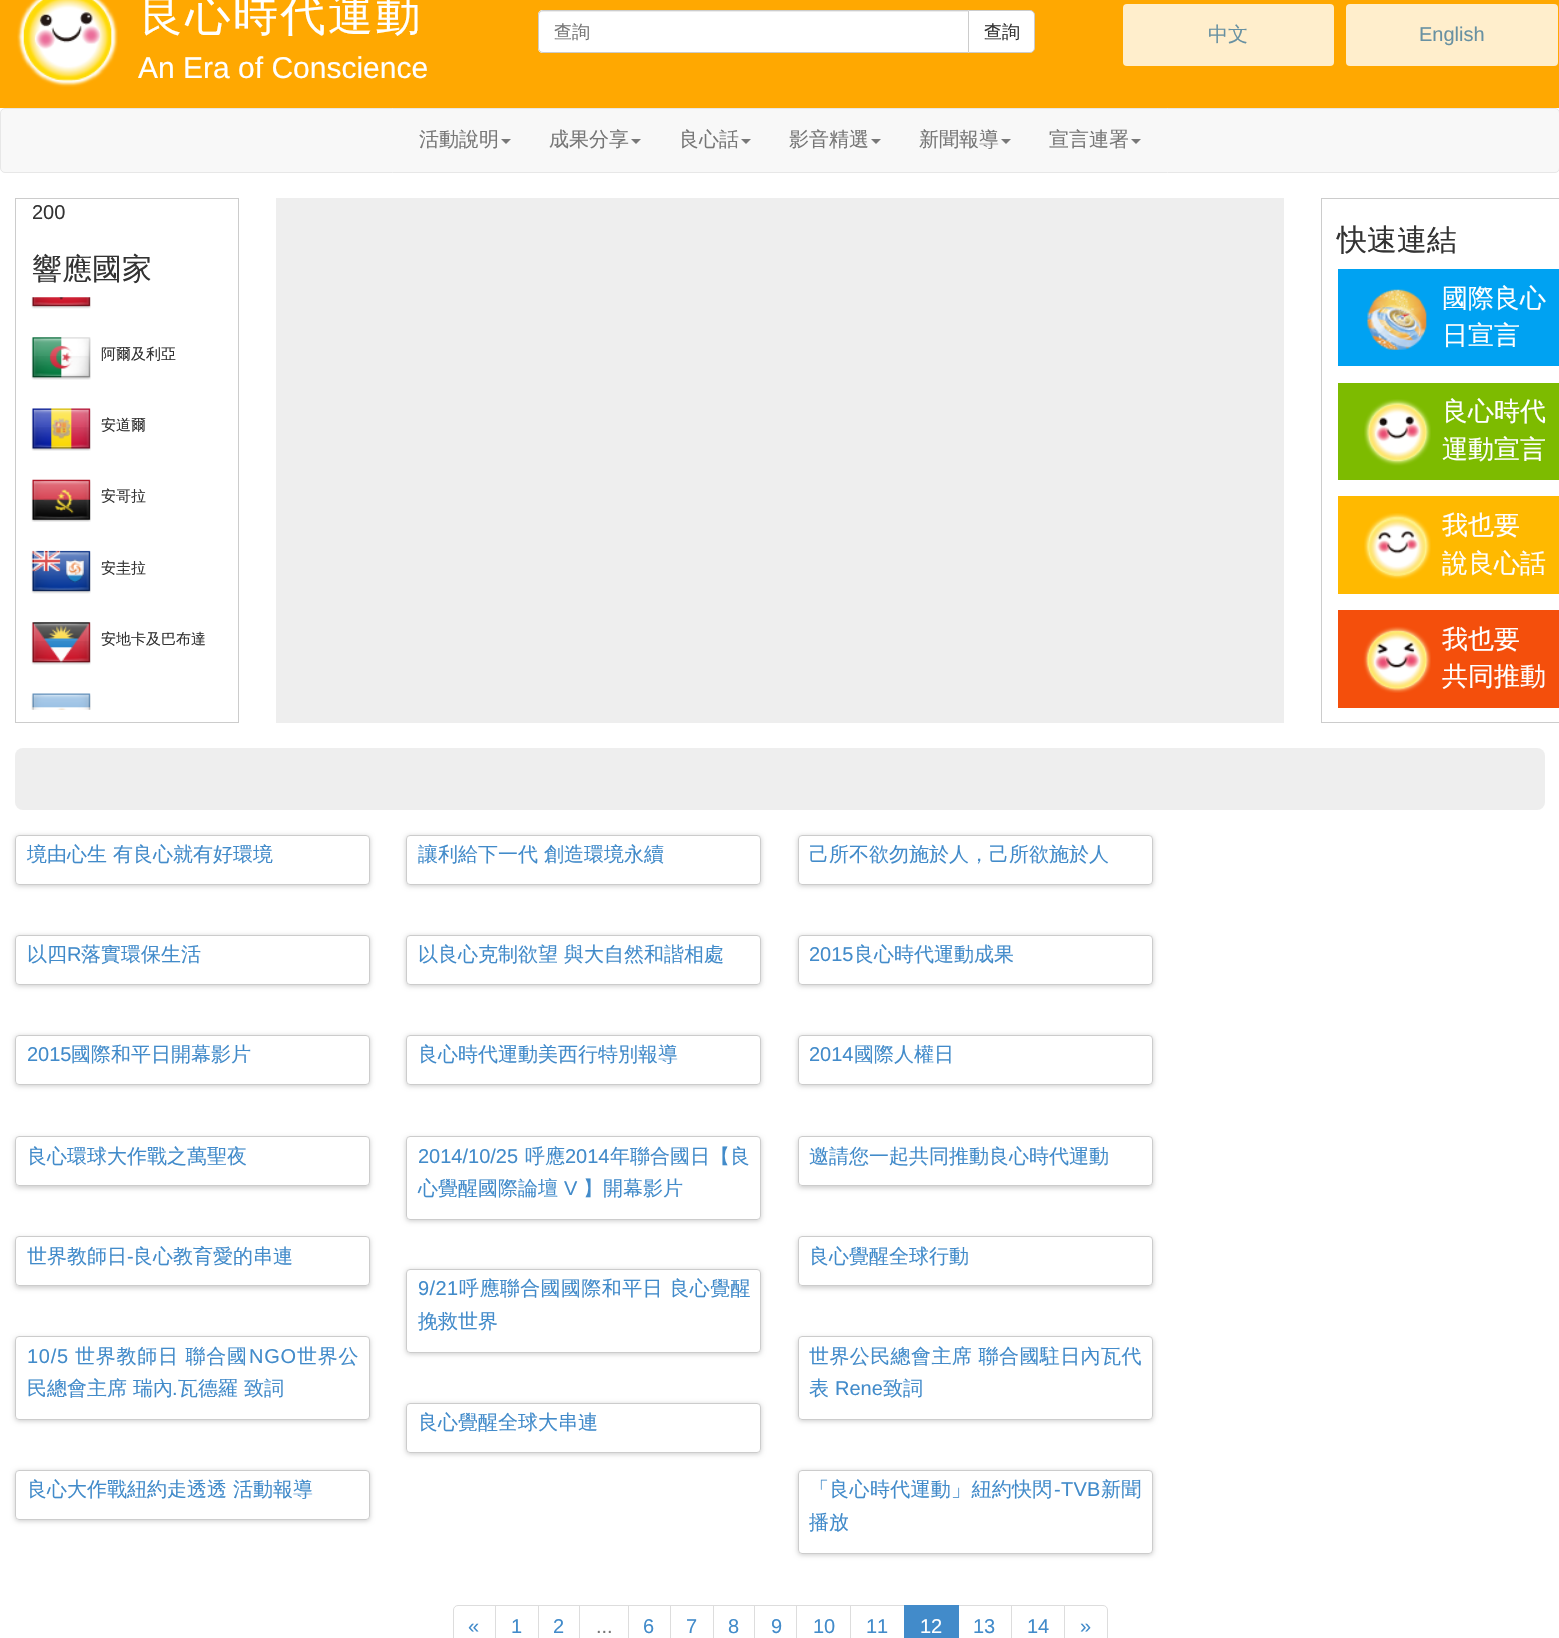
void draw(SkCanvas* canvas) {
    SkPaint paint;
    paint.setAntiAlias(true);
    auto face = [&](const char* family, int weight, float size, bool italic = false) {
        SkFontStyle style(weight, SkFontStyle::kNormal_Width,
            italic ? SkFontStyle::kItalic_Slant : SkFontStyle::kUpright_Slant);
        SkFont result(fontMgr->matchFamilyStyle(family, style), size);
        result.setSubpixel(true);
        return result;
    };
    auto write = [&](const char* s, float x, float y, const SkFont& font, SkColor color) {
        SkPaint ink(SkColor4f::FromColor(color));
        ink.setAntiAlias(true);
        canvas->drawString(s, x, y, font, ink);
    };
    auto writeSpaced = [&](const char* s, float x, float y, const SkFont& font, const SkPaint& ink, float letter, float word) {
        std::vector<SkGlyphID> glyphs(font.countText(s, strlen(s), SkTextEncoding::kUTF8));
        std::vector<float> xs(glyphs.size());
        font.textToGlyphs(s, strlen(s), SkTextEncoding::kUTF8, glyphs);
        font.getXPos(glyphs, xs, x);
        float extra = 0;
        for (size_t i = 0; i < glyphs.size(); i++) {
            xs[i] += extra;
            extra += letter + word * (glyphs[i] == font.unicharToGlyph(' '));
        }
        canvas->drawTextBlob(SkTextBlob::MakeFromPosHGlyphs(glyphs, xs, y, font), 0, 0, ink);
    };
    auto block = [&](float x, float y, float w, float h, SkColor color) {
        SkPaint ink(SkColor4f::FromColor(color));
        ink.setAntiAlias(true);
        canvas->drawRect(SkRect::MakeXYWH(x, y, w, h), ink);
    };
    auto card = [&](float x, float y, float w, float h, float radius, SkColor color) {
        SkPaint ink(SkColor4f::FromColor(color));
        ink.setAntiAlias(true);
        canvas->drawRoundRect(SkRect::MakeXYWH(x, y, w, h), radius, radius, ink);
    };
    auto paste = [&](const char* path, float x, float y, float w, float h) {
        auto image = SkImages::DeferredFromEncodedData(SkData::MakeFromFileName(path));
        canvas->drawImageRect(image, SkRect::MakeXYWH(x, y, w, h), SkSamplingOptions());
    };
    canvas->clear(SK_ColorWHITE);
    block(0, 0, 1559, 108, SkColorSetRGB(255, 168, 1));
    paste("pic1.png", 17, 0, 101, 87);
    auto kFont1 = face("WenQuanYi Zen Hei", 500, 45);
    paint.setColor(SK_ColorWHITE);
    writeSpaced("良心時代運動", 138, 30, kFont1, paint, 2.5f, 0);
    auto kFont2 = face("Liberation Sans", 400, 30);
    write("An Era of Conscience", 138, 78, kFont2, SK_ColorWHITE);
    canvas->drawPath(SkPathBuilder().moveTo(968.5f, 10.5f).lineTo(1030, 10.5f).cubicTo(1032.5f, 10.5f, 1034.5f, 12.5f, 1034.5f, 15).lineTo(1034.5f, 48).cubicTo(1034.5f, 50.5f, 1032.5f, 52.5f, 1030, 52.5f).lineTo(968.5f, 52.5f).close().detach(), paint);
    paint.setStyle(SkPaint::kStroke_Style);
    paint.setStrokeWidth(1);
    paint.setColor(SkColorSetRGB(204, 204, 204));
    canvas->drawPath(SkPathBuilder().moveTo(968.5f, 10.5f).lineTo(1030, 10.5f).cubicTo(1032.5f, 10.5f, 1034.5f, 12.5f, 1034.5f, 15).lineTo(1034.5f, 48).cubicTo(1034.5f, 50.5f, 1032.5f, 52.5f, 1030, 52.5f).lineTo(968.5f, 52.5f).close().detach(), paint);
    paint.setStyle(SkPaint::kFill_Style);
    paint.setColor(SK_ColorWHITE);
    canvas->drawPath(SkPathBuilder().moveTo(543, 10).lineTo(969, 10).lineTo(969, 53).lineTo(543, 53).cubicTo(540, 53, 538, 51, 538, 48).lineTo(538, 15).cubicTo(538, 12, 540, 10, 543, 10).close().detach(), paint);
    paint.setColor(SkColorSetRGB(236, 236, 236));
    canvas->drawPath(SkPathBuilder().moveTo(542, 12).lineTo(968, 12).lineTo(968, 11).lineTo(543, 11).cubicTo(541, 11, 539, 13, 539, 15).lineTo(539, 16).cubicTo(539, 14, 540, 12, 542, 12).close().detach(), paint);
    paint.setStyle(SkPaint::kStroke_Style);
    paint.setColor(SkColorSetRGB(204, 204, 204));
    canvas->drawPath(SkPathBuilder().moveTo(543, 10.5f).lineTo(968.5f, 10.5f).lineTo(968.5f, 52.5f).lineTo(543, 52.5f).cubicTo(540.5f, 52.5f, 538.5f, 50.5f, 538.5f, 48).lineTo(538.5f, 15).cubicTo(538.5f, 12.5f, 540.5f, 10.5f, 543, 10.5f).close().detach(), paint);
    auto kFont3 = face("WenQuanYi Zen Hei", 500, 18);
    write("查詢", 554, 38, kFont3, SkColorSetRGB(119, 119, 119));
    write("查詢", 984, 38, kFont3, SkColorSetRGB(51, 51, 51));
    card(1123, 4, 211, 62, 4, SkColorSetRGB(255, 238, 204));
    auto kFont4 = face("WenQuanYi Zen Hei", 500, 20);
    write("中文", 1208, 41, kFont4, SkColorSetRGB(104, 145, 162));
    card(1346, 4, 212, 62, 4, SkColorSetRGB(255, 238, 204));
    auto kFont5 = face("Liberation Sans", 400, 20);
    write("English", 1419, 41, kFont5, SkColorSetRGB(104, 145, 162));
    paint.setStyle(SkPaint::kFill_Style);
    paint.setColor(SkColorSetRGB(248, 248, 248));
    canvas->drawRoundRect(SkRect::MakeXYWH(0.5f, 108.5f, 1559, 64), 4.5f, 4.5f, paint);
    paint.setStyle(SkPaint::kStroke_Style);
    paint.setColor(SkColorSetRGB(231, 231, 231));
    canvas->drawRoundRect(SkRect::MakeXYWH(0.5f, 108.5f, 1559, 64), 4.5f, 4.5f, paint);
    write("活動說明", 419, 146, kFont4, SkColorSetRGB(119, 119, 119));
    paint.setStyle(SkPaint::kFill_Style);
    paint.setColor(SkColorSetRGB(119, 119, 119));
    canvas->drawPath(SkPathBuilder().moveTo(501, 139).lineTo(511, 139).lineTo(506, 144).close().detach(), paint);
    write("成果分享", 549, 146, kFont4, SkColorSetRGB(119, 119, 119));
    canvas->drawPath(SkPathBuilder().moveTo(631, 139).lineTo(641, 139).lineTo(636, 144).close().detach(), paint);
    write("良心話", 679, 146, kFont4, SkColorSetRGB(119, 119, 119));
    canvas->drawPath(SkPathBuilder().moveTo(741, 139).lineTo(751, 139).lineTo(746, 144).close().detach(), paint);
    write("影音精選", 789, 146, kFont4, SkColorSetRGB(119, 119, 119));
    canvas->drawPath(SkPathBuilder().moveTo(871, 139).lineTo(881, 139).lineTo(876, 144).close().detach(), paint);
    write("新聞報導", 919, 146, kFont4, SkColorSetRGB(119, 119, 119));
    canvas->drawPath(SkPathBuilder().moveTo(1001, 139).lineTo(1011, 139).lineTo(1006, 144).close().detach(), paint);
    write("宣言連署", 1049, 146, kFont4, SkColorSetRGB(119, 119, 119));
    canvas->drawPath(SkPathBuilder().moveTo(1131, 139).lineTo(1141, 139).lineTo(1136, 144).close().detach(), paint);
    paint.setStyle(SkPaint::kStroke_Style);
    paint.setColor(SkColorSetRGB(204, 204, 204));
    canvas->drawRect(SkRect::MakeXYWH(15.5f, 198.5f, 223, 524), paint);
    write("200", 32, 219, kFont5, SkColorSetRGB(51, 51, 51));
    auto kFont6 = face("WenQuanYi Zen Hei", 500, 30);
    write("響應國家", 32, 279, kFont6, SkColorSetRGB(51, 51, 51));
    paste("pic2.png", 31, 297, 60, 12);
    paste("pic3.png", 31, 337, 60, 43);
    auto kFont7 = face("WenQuanYi Zen Hei", 500, 15);
    write("阿爾及利亞", 101, 359, kFont7, SkColorSetRGB(51, 51, 51));
    paste("pic4.png", 31, 408, 60, 43);
    write("安道爾", 101, 430, kFont7, SkColorSetRGB(51, 51, 51));
    paste("pic5.png", 31, 479, 60, 43);
    write("安哥拉", 101, 501, kFont7, SkColorSetRGB(51, 51, 51));
    paste("pic6.png", 31, 550, 60, 44);
    write("安圭拉", 101, 573, kFont7, SkColorSetRGB(51, 51, 51));
    paste("pic7.png", 31, 622, 60, 43);
    write("安地卡及巴布達", 101, 644, kFont7, SkColorSetRGB(51, 51, 51));
    paste("pic8.png", 31, 693, 60, 17);
    block(276, 198, 1008, 525, SkColorSetRGB(238, 238, 238));
    canvas->drawRect(SkRect::MakeXYWH(1321.5f, 198.5f, 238, 524), paint);
    write("快速連結", 1337, 250, kFont6, SkColorSetRGB(51, 51, 51));
    block(1338, 269, 221, 97, SkColorSetRGB(0, 162, 242));
    paste("pic9.png", 1367, 289, 60, 61);
    auto kFont8 = face("WenQuanYi Zen Hei", 500, 26);
    write("國際良心", 1442, 307, kFont8, SK_ColorWHITE);
    write("日宣言", 1442, 344, kFont8, SK_ColorWHITE);
    block(1338, 383, 221, 97, SkColorSetRGB(125, 187, 0));
    paste("pic10.png", 1364, 399, 67, 67);
    write("良心時代", 1442, 420, kFont8, SK_ColorWHITE);
    write("運動宣言", 1442, 458, kFont8, SK_ColorWHITE);
    block(1338, 496, 221, 98, SkColorSetRGB(255, 185, 0));
    paste("pic11.png", 1364, 513, 67, 67);
    write("我也要", 1442, 534, kFont8, SK_ColorWHITE);
    write("說良心話", 1442, 572, kFont8, SK_ColorWHITE);
    block(1338, 610, 221, 98, SkColorSetRGB(244, 79, 12));
    paste("pic12.png", 1363, 626, 68, 67);
    write("我也要", 1442, 648, kFont8, SK_ColorWHITE);
    write("共同推動", 1442, 685, kFont8, SK_ColorWHITE);
    card(15, 748, 1530, 62, 8, SkColorSetRGB(238, 238, 238));
    canvas->save();
    canvas->clipPath(SkPathBuilder(SkPathFillType::kEvenOdd).moveTo(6, 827).lineTo(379, 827).lineTo(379, 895).lineTo(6, 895).close().moveTo(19, 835).lineTo(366, 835).cubicTo(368, 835, 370, 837, 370, 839).lineTo(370, 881).cubicTo(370, 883, 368, 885, 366, 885).lineTo(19, 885).cubicTo(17, 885, 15, 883, 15, 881).lineTo(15, 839).cubicTo(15, 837, 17, 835, 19, 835).close().detach(), true);
    paint.setStyle(SkPaint::kFill_Style);
    paint.setColor(SkColorSetARGB(51, 0, 0, 0));
    paint.setMaskFilter(SkMaskFilter::MakeBlur(kNormal_SkBlurStyle, 2.5f));
    canvas->drawRoundRect(SkRect::MakeXYWH(15, 836, 355, 50), 4, 4, paint);
    paint.setMaskFilter(nullptr);
    canvas->restore();
    paint.setStyle(SkPaint::kStroke_Style);
    paint.setColor(SkColorSetRGB(204, 204, 204));
    canvas->drawRoundRect(SkRect::MakeXYWH(15.5f, 835.5f, 354, 49), 3.5f, 3.5f, paint);
    write("境由心生 有良心就有好環境", 27, 861, kFont4, SkColorSetRGB(66, 139, 202));
    canvas->save();
    canvas->clipPath(SkPathBuilder(SkPathFillType::kEvenOdd).moveTo(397, 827).lineTo(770, 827).lineTo(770, 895).lineTo(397, 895).close().moveTo(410, 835).lineTo(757, 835).cubicTo(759, 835, 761, 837, 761, 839).lineTo(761, 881).cubicTo(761, 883, 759, 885, 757, 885).lineTo(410, 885).cubicTo(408, 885, 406, 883, 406, 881).lineTo(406, 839).cubicTo(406, 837, 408, 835, 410, 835).close().detach(), true);
    paint.setStyle(SkPaint::kFill_Style);
    paint.setColor(SkColorSetARGB(51, 0, 0, 0));
    paint.setMaskFilter(SkMaskFilter::MakeBlur(kNormal_SkBlurStyle, 2.5f));
    canvas->drawRoundRect(SkRect::MakeXYWH(406, 836, 355, 50), 4, 4, paint);
    paint.setMaskFilter(nullptr);
    canvas->restore();
    paint.setStyle(SkPaint::kStroke_Style);
    paint.setColor(SkColorSetRGB(204, 204, 204));
    canvas->drawRoundRect(SkRect::MakeXYWH(406.5f, 835.5f, 354, 49), 3.5f, 3.5f, paint);
    write("讓利給下一代 創造環境永續", 418, 861, kFont4, SkColorSetRGB(66, 139, 202));
    canvas->save();
    canvas->clipPath(SkPathBuilder(SkPathFillType::kEvenOdd).moveTo(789, 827).lineTo(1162, 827).lineTo(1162, 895).lineTo(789, 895).close().moveTo(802, 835).lineTo(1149, 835).cubicTo(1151, 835, 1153, 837, 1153, 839).lineTo(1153, 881).cubicTo(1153, 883, 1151, 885, 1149, 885).lineTo(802, 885).cubicTo(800, 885, 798, 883, 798, 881).lineTo(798, 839).cubicTo(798, 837, 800, 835, 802, 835).close().detach(), true);
    paint.setStyle(SkPaint::kFill_Style);
    paint.setColor(SkColorSetARGB(51, 0, 0, 0));
    paint.setMaskFilter(SkMaskFilter::MakeBlur(kNormal_SkBlurStyle, 2.5f));
    canvas->drawRoundRect(SkRect::MakeXYWH(798, 836, 355, 50), 4, 4, paint);
    paint.setMaskFilter(nullptr);
    canvas->restore();
    paint.setStyle(SkPaint::kStroke_Style);
    paint.setColor(SkColorSetRGB(204, 204, 204));
    canvas->drawRoundRect(SkRect::MakeXYWH(798.5f, 835.5f, 354, 49), 3.5f, 3.5f, paint);
    write("己所不欲勿施於人，己所欲施於人", 809, 861, kFont4, SkColorSetRGB(66, 139, 202));
    canvas->save();
    canvas->clipPath(SkPathBuilder(SkPathFillType::kEvenOdd).moveTo(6, 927).lineTo(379, 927).lineTo(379, 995).lineTo(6, 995).close().moveTo(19, 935).lineTo(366, 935).cubicTo(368, 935, 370, 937, 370, 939).lineTo(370, 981).cubicTo(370, 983, 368, 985, 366, 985).lineTo(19, 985).cubicTo(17, 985, 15, 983, 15, 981).lineTo(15, 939).cubicTo(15, 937, 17, 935, 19, 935).close().detach(), true);
    paint.setStyle(SkPaint::kFill_Style);
    paint.setColor(SkColorSetARGB(51, 0, 0, 0));
    paint.setMaskFilter(SkMaskFilter::MakeBlur(kNormal_SkBlurStyle, 2.5f));
    canvas->drawRoundRect(SkRect::MakeXYWH(15, 936, 355, 50), 4, 4, paint);
    paint.setMaskFilter(nullptr);
    canvas->restore();
    paint.setStyle(SkPaint::kStroke_Style);
    paint.setColor(SkColorSetRGB(204, 204, 204));
    canvas->drawRoundRect(SkRect::MakeXYWH(15.5f, 935.5f, 354, 49), 3.5f, 3.5f, paint);
    write("以四", 27, 961, kFont4, SkColorSetRGB(66, 139, 202));
    write("R", 67, 961, kFont5, SkColorSetRGB(66, 139, 202));
    write("落實環保生活", 81, 961, kFont4, SkColorSetRGB(66, 139, 202));
    canvas->save();
    canvas->clipPath(SkPathBuilder(SkPathFillType::kEvenOdd).moveTo(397, 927).lineTo(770, 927).lineTo(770, 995).lineTo(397, 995).close().moveTo(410, 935).lineTo(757, 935).cubicTo(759, 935, 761, 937, 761, 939).lineTo(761, 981).cubicTo(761, 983, 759, 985, 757, 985).lineTo(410, 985).cubicTo(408, 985, 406, 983, 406, 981).lineTo(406, 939).cubicTo(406, 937, 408, 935, 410, 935).close().detach(), true);
    paint.setStyle(SkPaint::kFill_Style);
    paint.setColor(SkColorSetARGB(51, 0, 0, 0));
    paint.setMaskFilter(SkMaskFilter::MakeBlur(kNormal_SkBlurStyle, 2.5f));
    canvas->drawRoundRect(SkRect::MakeXYWH(406, 936, 355, 50), 4, 4, paint);
    paint.setMaskFilter(nullptr);
    canvas->restore();
    paint.setStyle(SkPaint::kStroke_Style);
    paint.setColor(SkColorSetRGB(204, 204, 204));
    canvas->drawRoundRect(SkRect::MakeXYWH(406.5f, 935.5f, 354, 49), 3.5f, 3.5f, paint);
    write("以良心克制欲望 與大自然和諧相處", 418, 961, kFont4, SkColorSetRGB(66, 139, 202));
    canvas->save();
    canvas->clipPath(SkPathBuilder(SkPathFillType::kEvenOdd).moveTo(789, 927).lineTo(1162, 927).lineTo(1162, 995).lineTo(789, 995).close().moveTo(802, 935).lineTo(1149, 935).cubicTo(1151, 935, 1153, 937, 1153, 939).lineTo(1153, 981).cubicTo(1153, 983, 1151, 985, 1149, 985).lineTo(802, 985).cubicTo(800, 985, 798, 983, 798, 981).lineTo(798, 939).cubicTo(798, 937, 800, 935, 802, 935).close().detach(), true);
    paint.setStyle(SkPaint::kFill_Style);
    paint.setColor(SkColorSetARGB(51, 0, 0, 0));
    paint.setMaskFilter(SkMaskFilter::MakeBlur(kNormal_SkBlurStyle, 2.5f));
    canvas->drawRoundRect(SkRect::MakeXYWH(798, 936, 355, 50), 4, 4, paint);
    paint.setMaskFilter(nullptr);
    canvas->restore();
    paint.setStyle(SkPaint::kStroke_Style);
    paint.setColor(SkColorSetRGB(204, 204, 204));
    canvas->drawRoundRect(SkRect::MakeXYWH(798.5f, 935.5f, 354, 49), 3.5f, 3.5f, paint);
    write("2015", 809, 961, kFont5, SkColorSetRGB(66, 139, 202));
    write("良心時代運動成果", 854, 961, kFont4, SkColorSetRGB(66, 139, 202));
    canvas->save();
    canvas->clipPath(SkPathBuilder(SkPathFillType::kEvenOdd).moveTo(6, 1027).lineTo(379, 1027).lineTo(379, 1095).lineTo(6, 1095).close().moveTo(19, 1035).lineTo(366, 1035).cubicTo(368, 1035, 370, 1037, 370, 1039).lineTo(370, 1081).cubicTo(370, 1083, 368, 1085, 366, 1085).lineTo(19, 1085).cubicTo(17, 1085, 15, 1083, 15, 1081).lineTo(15, 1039).cubicTo(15, 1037, 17, 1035, 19, 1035).close().detach(), true);
    paint.setStyle(SkPaint::kFill_Style);
    paint.setColor(SkColorSetARGB(51, 0, 0, 0));
    paint.setMaskFilter(SkMaskFilter::MakeBlur(kNormal_SkBlurStyle, 2.5f));
    canvas->drawRoundRect(SkRect::MakeXYWH(15, 1036, 355, 50), 4, 4, paint);
    paint.setMaskFilter(nullptr);
    canvas->restore();
    paint.setStyle(SkPaint::kStroke_Style);
    paint.setColor(SkColorSetRGB(204, 204, 204));
    canvas->drawRoundRect(SkRect::MakeXYWH(15.5f, 1035.5f, 354, 49), 3.5f, 3.5f, paint);
    write("2015", 27, 1061, kFont5, SkColorSetRGB(66, 139, 202));
    write("國際和平日開幕影片", 71, 1061, kFont4, SkColorSetRGB(66, 139, 202));
    canvas->save();
    canvas->clipPath(SkPathBuilder(SkPathFillType::kEvenOdd).moveTo(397, 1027).lineTo(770, 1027).lineTo(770, 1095).lineTo(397, 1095).close().moveTo(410, 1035).lineTo(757, 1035).cubicTo(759, 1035, 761, 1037, 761, 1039).lineTo(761, 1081).cubicTo(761, 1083, 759, 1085, 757, 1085).lineTo(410, 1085).cubicTo(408, 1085, 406, 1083, 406, 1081).lineTo(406, 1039).cubicTo(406, 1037, 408, 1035, 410, 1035).close().detach(), true);
    paint.setStyle(SkPaint::kFill_Style);
    paint.setColor(SkColorSetARGB(51, 0, 0, 0));
    paint.setMaskFilter(SkMaskFilter::MakeBlur(kNormal_SkBlurStyle, 2.5f));
    canvas->drawRoundRect(SkRect::MakeXYWH(406, 1036, 355, 50), 4, 4, paint);
    paint.setMaskFilter(nullptr);
    canvas->restore();
    paint.setStyle(SkPaint::kStroke_Style);
    paint.setColor(SkColorSetRGB(204, 204, 204));
    canvas->drawRoundRect(SkRect::MakeXYWH(406.5f, 1035.5f, 354, 49), 3.5f, 3.5f, paint);
    write("良心時代運動美西行特別報導", 418, 1061, kFont4, SkColorSetRGB(66, 139, 202));
    canvas->save();
    canvas->clipPath(SkPathBuilder(SkPathFillType::kEvenOdd).moveTo(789, 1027).lineTo(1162, 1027).lineTo(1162, 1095).lineTo(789, 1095).close().moveTo(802, 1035).lineTo(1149, 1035).cubicTo(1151, 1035, 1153, 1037, 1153, 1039).lineTo(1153, 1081).cubicTo(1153, 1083, 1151, 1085, 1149, 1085).lineTo(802, 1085).cubicTo(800, 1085, 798, 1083, 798, 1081).lineTo(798, 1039).cubicTo(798, 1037, 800, 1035, 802, 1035).close().detach(), true);
    paint.setStyle(SkPaint::kFill_Style);
    paint.setColor(SkColorSetARGB(51, 0, 0, 0));
    paint.setMaskFilter(SkMaskFilter::MakeBlur(kNormal_SkBlurStyle, 2.5f));
    canvas->drawRoundRect(SkRect::MakeXYWH(798, 1036, 355, 50), 4, 4, paint);
    paint.setMaskFilter(nullptr);
    canvas->restore();
    paint.setStyle(SkPaint::kStroke_Style);
    paint.setColor(SkColorSetRGB(204, 204, 204));
    canvas->drawRoundRect(SkRect::MakeXYWH(798.5f, 1035.5f, 354, 49), 3.5f, 3.5f, paint);
    write("2014", 809, 1061, kFont5, SkColorSetRGB(66, 139, 202));
    write("國際人權日", 854, 1061, kFont4, SkColorSetRGB(66, 139, 202));
    canvas->save();
    canvas->clipPath(SkPathBuilder(SkPathFillType::kEvenOdd).moveTo(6, 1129).lineTo(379, 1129).lineTo(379, 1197).lineTo(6, 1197).close().moveTo(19, 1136).lineTo(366, 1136).cubicTo(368, 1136, 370, 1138, 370, 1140).lineTo(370, 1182).cubicTo(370, 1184, 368, 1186, 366, 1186).lineTo(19, 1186).cubicTo(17, 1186, 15, 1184, 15, 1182).lineTo(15, 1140).cubicTo(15, 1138, 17, 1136, 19, 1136).close().detach(), true);
    paint.setStyle(SkPaint::kFill_Style);
    paint.setColor(SkColorSetARGB(51, 0, 0, 0));
    paint.setMaskFilter(SkMaskFilter::MakeBlur(kNormal_SkBlurStyle, 2.5f));
    canvas->drawRoundRect(SkRect::MakeXYWH(15, 1138, 355, 50), 4, 4, paint);
    paint.setMaskFilter(nullptr);
    canvas->restore();
    paint.setStyle(SkPaint::kStroke_Style);
    paint.setColor(SkColorSetRGB(204, 204, 204));
    canvas->drawRoundRect(SkRect::MakeXYWH(15.5f, 1136.5f, 354, 49), 3.5f, 3.5f, paint);
    write("良心環球大作戰之萬聖夜", 27, 1163, kFont4, SkColorSetRGB(66, 139, 202));
    canvas->save();
    canvas->clipPath(SkPathBuilder(SkPathFillType::kEvenOdd).moveTo(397, 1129).lineTo(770, 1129).lineTo(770, 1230).lineTo(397, 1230).close().moveTo(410, 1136).lineTo(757, 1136).cubicTo(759, 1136, 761, 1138, 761, 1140).lineTo(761, 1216).cubicTo(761, 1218, 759, 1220, 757, 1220).lineTo(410, 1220).cubicTo(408, 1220, 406, 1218, 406, 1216).lineTo(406, 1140).cubicTo(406, 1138, 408, 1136, 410, 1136).close().detach(), true);
    paint.setStyle(SkPaint::kFill_Style);
    paint.setColor(SkColorSetARGB(51, 0, 0, 0));
    paint.setMaskFilter(SkMaskFilter::MakeBlur(kNormal_SkBlurStyle, 2.5f));
    canvas->drawRoundRect(SkRect::MakeXYWH(406, 1138, 355, 83), 4, 4, paint);
    paint.setMaskFilter(nullptr);
    canvas->restore();
    paint.setStyle(SkPaint::kStroke_Style);
    paint.setColor(SkColorSetRGB(204, 204, 204));
    canvas->drawRoundRect(SkRect::MakeXYWH(406.5f, 1136.5f, 354, 83), 3.5f, 3.5f, paint);
    write("2014/10/25", 418, 1163, kFont5, SkColorSetRGB(66, 139, 202));
    write("呼應", 525, 1163, kFont4, SkColorSetRGB(66, 139, 202));
    write("2014", 565, 1163, kFont5, SkColorSetRGB(66, 139, 202));
    write("年聯合國日【良", 610, 1163, kFont4, SkColorSetRGB(66, 139, 202));
    write("心覺醒國際論壇", 418, 1195, kFont4, SkColorSetRGB(66, 139, 202));
    write("V", 564, 1195, kFont5, SkColorSetRGB(66, 139, 202));
    write("】開幕影片", 583, 1195, kFont4, SkColorSetRGB(66, 139, 202));
    canvas->save();
    canvas->clipPath(SkPathBuilder(SkPathFillType::kEvenOdd).moveTo(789, 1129).lineTo(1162, 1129).lineTo(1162, 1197).lineTo(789, 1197).close().moveTo(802, 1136).lineTo(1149, 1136).cubicTo(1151, 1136, 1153, 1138, 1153, 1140).lineTo(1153, 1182).cubicTo(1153, 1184, 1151, 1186, 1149, 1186).lineTo(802, 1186).cubicTo(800, 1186, 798, 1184, 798, 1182).lineTo(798, 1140).cubicTo(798, 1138, 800, 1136, 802, 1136).close().detach(), true);
    paint.setStyle(SkPaint::kFill_Style);
    paint.setColor(SkColorSetARGB(51, 0, 0, 0));
    paint.setMaskFilter(SkMaskFilter::MakeBlur(kNormal_SkBlurStyle, 2.5f));
    canvas->drawRoundRect(SkRect::MakeXYWH(798, 1138, 355, 50), 4, 4, paint);
    paint.setMaskFilter(nullptr);
    canvas->restore();
    paint.setStyle(SkPaint::kStroke_Style);
    paint.setColor(SkColorSetRGB(204, 204, 204));
    canvas->drawRoundRect(SkRect::MakeXYWH(798.5f, 1136.5f, 354, 49), 3.5f, 3.5f, paint);
    write("邀請您一起共同推動良心時代運動", 809, 1163, kFont4, SkColorSetRGB(66, 139, 202));
    canvas->save();
    canvas->clipPath(SkPathBuilder(SkPathFillType::kEvenOdd).moveTo(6, 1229).lineTo(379, 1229).lineTo(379, 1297).lineTo(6, 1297).close().moveTo(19, 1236).lineTo(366, 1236).cubicTo(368, 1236, 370, 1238, 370, 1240).lineTo(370, 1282).cubicTo(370, 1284, 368, 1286, 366, 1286).lineTo(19, 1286).cubicTo(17, 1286, 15, 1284, 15, 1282).lineTo(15, 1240).cubicTo(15, 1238, 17, 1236, 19, 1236).close().detach(), true);
    paint.setStyle(SkPaint::kFill_Style);
    paint.setColor(SkColorSetARGB(51, 0, 0, 0));
    paint.setMaskFilter(SkMaskFilter::MakeBlur(kNormal_SkBlurStyle, 2.5f));
    canvas->drawRoundRect(SkRect::MakeXYWH(15, 1238, 355, 50), 4, 4, paint);
    paint.setMaskFilter(nullptr);
    canvas->restore();
    paint.setStyle(SkPaint::kStroke_Style);
    paint.setColor(SkColorSetRGB(204, 204, 204));
    canvas->drawRoundRect(SkRect::MakeXYWH(15.5f, 1236.5f, 354, 49), 3.5f, 3.5f, paint);
    write("世界教師日", 27, 1263, kFont4, SkColorSetRGB(66, 139, 202));
    write("-", 127, 1263, kFont5, SkColorSetRGB(66, 139, 202));
    write("良心教育愛的串連", 133, 1263, kFont4, SkColorSetRGB(66, 139, 202));
    canvas->save();
    canvas->clipPath(SkPathBuilder(SkPathFillType::kEvenOdd).moveTo(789, 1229).lineTo(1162, 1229).lineTo(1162, 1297).lineTo(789, 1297).close().moveTo(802, 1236).lineTo(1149, 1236).cubicTo(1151, 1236, 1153, 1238, 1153, 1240).lineTo(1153, 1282).cubicTo(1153, 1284, 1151, 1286, 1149, 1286).lineTo(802, 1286).cubicTo(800, 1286, 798, 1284, 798, 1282).lineTo(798, 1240).cubicTo(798, 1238, 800, 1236, 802, 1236).close().detach(), true);
    paint.setStyle(SkPaint::kFill_Style);
    paint.setColor(SkColorSetARGB(51, 0, 0, 0));
    paint.setMaskFilter(SkMaskFilter::MakeBlur(kNormal_SkBlurStyle, 2.5f));
    canvas->drawRoundRect(SkRect::MakeXYWH(798, 1238, 355, 50), 4, 4, paint);
    paint.setMaskFilter(nullptr);
    canvas->restore();
    paint.setStyle(SkPaint::kStroke_Style);
    paint.setColor(SkColorSetRGB(204, 204, 204));
    canvas->drawRoundRect(SkRect::MakeXYWH(798.5f, 1236.5f, 354, 49), 3.5f, 3.5f, paint);
    write("良心覺醒全球行動", 809, 1263, kFont4, SkColorSetRGB(66, 139, 202));
    canvas->save();
    canvas->clipPath(SkPathBuilder(SkPathFillType::kEvenOdd).moveTo(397, 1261).lineTo(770, 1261).lineTo(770, 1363).lineTo(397, 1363).close().moveTo(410, 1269).lineTo(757, 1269).cubicTo(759, 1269, 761, 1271, 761, 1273).lineTo(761, 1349).cubicTo(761, 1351, 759, 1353, 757, 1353).lineTo(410, 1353).cubicTo(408, 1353, 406, 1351, 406, 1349).lineTo(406, 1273).cubicTo(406, 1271, 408, 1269, 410, 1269).close().detach(), true);
    paint.setStyle(SkPaint::kFill_Style);
    paint.setColor(SkColorSetARGB(51, 0, 0, 0));
    paint.setMaskFilter(SkMaskFilter::MakeBlur(kNormal_SkBlurStyle, 2.5f));
    canvas->drawRoundRect(SkRect::MakeXYWH(406, 1270, 355, 84), 4, 4, paint);
    paint.setMaskFilter(nullptr);
    canvas->restore();
    paint.setStyle(SkPaint::kStroke_Style);
    paint.setColor(SkColorSetRGB(204, 204, 204));
    canvas->drawRoundRect(SkRect::MakeXYWH(406.5f, 1269.5f, 354, 83), 3.5f, 3.5f, paint);
    paint.setStyle(SkPaint::kFill_Style);
    paint.setColor(SkColorSetRGB(66, 139, 202));
    writeSpaced("9/21", 418, 1295, kFont5, paint, 0.4f, 0);
    writeSpaced("呼應聯合國國際和平日 良心覺醒", 459, 1295, kFont4, paint, 0.4f, 0);
    write("挽救世界", 418, 1328, kFont4, SkColorSetRGB(66, 139, 202));
    canvas->save();
    canvas->clipPath(SkPathBuilder(SkPathFillType::kEvenOdd).moveTo(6, 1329).lineTo(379, 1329).lineTo(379, 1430).lineTo(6, 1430).close().moveTo(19, 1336).lineTo(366, 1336).cubicTo(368, 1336, 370, 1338, 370, 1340).lineTo(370, 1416).cubicTo(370, 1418, 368, 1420, 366, 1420).lineTo(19, 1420).cubicTo(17, 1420, 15, 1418, 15, 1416).lineTo(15, 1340).cubicTo(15, 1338, 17, 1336, 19, 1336).close().detach(), true);
    paint.setColor(SkColorSetARGB(51, 0, 0, 0));
    paint.setMaskFilter(SkMaskFilter::MakeBlur(kNormal_SkBlurStyle, 2.5f));
    canvas->drawRoundRect(SkRect::MakeXYWH(15, 1338, 355, 83), 4, 4, paint);
    paint.setMaskFilter(nullptr);
    canvas->restore();
    paint.setStyle(SkPaint::kStroke_Style);
    paint.setColor(SkColorSetRGB(204, 204, 204));
    canvas->drawRoundRect(SkRect::MakeXYWH(15.5f, 1336.5f, 354, 83), 3.5f, 3.5f, paint);
    paint.setStyle(SkPaint::kFill_Style);
    paint.setColor(SkColorSetRGB(66, 139, 202));
    writeSpaced("10/5", 27, 1363, kFont5, paint, 0.75f, 0);
    writeSpaced("世界教師日 聯合國", 75, 1363, kFont4, paint, 0.75f, 0);
    writeSpaced("NGO", 249, 1363, kFont5, paint, 0.75f, 0);
    writeSpaced("世界公", 297, 1363, kFont4, paint, 0.75f, 0);
    write("民總會主席 瑞內", 27, 1395, kFont4, SkColorSetRGB(66, 139, 202));
    write(".", 172, 1395, kFont5, SkColorSetRGB(66, 139, 202));
    write("瓦德羅 致詞", 178, 1395, kFont4, SkColorSetRGB(66, 139, 202));
    canvas->save();
    canvas->clipPath(SkPathBuilder(SkPathFillType::kEvenOdd).moveTo(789, 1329).lineTo(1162, 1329).lineTo(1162, 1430).lineTo(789, 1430).close().moveTo(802, 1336).lineTo(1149, 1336).cubicTo(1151, 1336, 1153, 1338, 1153, 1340).lineTo(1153, 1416).cubicTo(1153, 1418, 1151, 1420, 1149, 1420).lineTo(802, 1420).cubicTo(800, 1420, 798, 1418, 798, 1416).lineTo(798, 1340).cubicTo(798, 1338, 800, 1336, 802, 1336).close().detach(), true);
    paint.setColor(SkColorSetARGB(51, 0, 0, 0));
    paint.setMaskFilter(SkMaskFilter::MakeBlur(kNormal_SkBlurStyle, 2.5f));
    canvas->drawRoundRect(SkRect::MakeXYWH(798, 1338, 355, 83), 4, 4, paint);
    paint.setMaskFilter(nullptr);
    canvas->restore();
    paint.setStyle(SkPaint::kStroke_Style);
    paint.setColor(SkColorSetRGB(204, 204, 204));
    canvas->drawRoundRect(SkRect::MakeXYWH(798.5f, 1336.5f, 354, 83), 3.5f, 3.5f, paint);
    paint.setStyle(SkPaint::kFill_Style);
    paint.setColor(SkColorSetRGB(66, 139, 202));
    writeSpaced("世界公民總會主席 聯合國駐日內瓦代", 809, 1363, kFont4, paint, 0.4f, 0);
    write("表", 809, 1395, kFont4, SkColorSetRGB(66, 139, 202));
    write("Rene", 835, 1395, kFont5, SkColorSetRGB(66, 139, 202));
    write("致詞", 883, 1395, kFont4, SkColorSetRGB(66, 139, 202));
    canvas->save();
    canvas->clipPath(SkPathBuilder(SkPathFillType::kEvenOdd).moveTo(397, 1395).lineTo(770, 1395).lineTo(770, 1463).lineTo(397, 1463).close().moveTo(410, 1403).lineTo(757, 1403).cubicTo(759, 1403, 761, 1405, 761, 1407).lineTo(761, 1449).cubicTo(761, 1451, 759, 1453, 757, 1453).lineTo(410, 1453).cubicTo(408, 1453, 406, 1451, 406, 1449).lineTo(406, 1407).cubicTo(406, 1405, 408, 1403, 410, 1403).close().detach(), true);
    paint.setColor(SkColorSetARGB(51, 0, 0, 0));
    paint.setMaskFilter(SkMaskFilter::MakeBlur(kNormal_SkBlurStyle, 2.5f));
    canvas->drawRoundRect(SkRect::MakeXYWH(406, 1404, 355, 50), 4, 4, paint);
    paint.setMaskFilter(nullptr);
    canvas->restore();
    paint.setStyle(SkPaint::kStroke_Style);
    paint.setColor(SkColorSetRGB(204, 204, 204));
    canvas->drawRoundRect(SkRect::MakeXYWH(406.5f, 1403.5f, 354, 49), 3.5f, 3.5f, paint);
    write("良心覺醒全球大串連", 418, 1429, kFont4, SkColorSetRGB(66, 139, 202));
    canvas->save();
    canvas->clipPath(SkPathBuilder(SkPathFillType::kEvenOdd).moveTo(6, 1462).lineTo(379, 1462).lineTo(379, 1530).lineTo(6, 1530).close().moveTo(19, 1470).lineTo(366, 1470).cubicTo(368, 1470, 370, 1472, 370, 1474).lineTo(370, 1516).cubicTo(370, 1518, 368, 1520, 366, 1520).lineTo(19, 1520).cubicTo(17, 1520, 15, 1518, 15, 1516).lineTo(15, 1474).cubicTo(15, 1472, 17, 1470, 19, 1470).close().detach(), true);
    paint.setStyle(SkPaint::kFill_Style);
    paint.setColor(SkColorSetARGB(51, 0, 0, 0));
    paint.setMaskFilter(SkMaskFilter::MakeBlur(kNormal_SkBlurStyle, 2.5f));
    canvas->drawRoundRect(SkRect::MakeXYWH(15, 1471, 355, 50), 4, 4, paint);
    paint.setMaskFilter(nullptr);
    canvas->restore();
    paint.setStyle(SkPaint::kStroke_Style);
    paint.setColor(SkColorSetRGB(204, 204, 204));
    canvas->drawRoundRect(SkRect::MakeXYWH(15.5f, 1470.5f, 354, 49), 3.5f, 3.5f, paint);
    write("良心大作戰紐約走透透 活動報導", 27, 1496, kFont4, SkColorSetRGB(66, 139, 202));
    canvas->save();
    canvas->clipPath(SkPathBuilder(SkPathFillType::kEvenOdd).moveTo(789, 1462).lineTo(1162, 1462).lineTo(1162, 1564).lineTo(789, 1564).close().moveTo(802, 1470).lineTo(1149, 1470).cubicTo(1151, 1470, 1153, 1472, 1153, 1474).lineTo(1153, 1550).cubicTo(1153, 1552, 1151, 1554, 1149, 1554).lineTo(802, 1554).cubicTo(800, 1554, 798, 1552, 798, 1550).lineTo(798, 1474).cubicTo(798, 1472, 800, 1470, 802, 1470).close().detach(), true);
    paint.setStyle(SkPaint::kFill_Style);
    paint.setColor(SkColorSetARGB(51, 0, 0, 0));
    paint.setMaskFilter(SkMaskFilter::MakeBlur(kNormal_SkBlurStyle, 2.5f));
    canvas->drawRoundRect(SkRect::MakeXYWH(798, 1471, 355, 84), 4, 4, paint);
    paint.setMaskFilter(nullptr);
    canvas->restore();
    paint.setStyle(SkPaint::kStroke_Style);
    paint.setColor(SkColorSetRGB(204, 204, 204));
    canvas->drawRoundRect(SkRect::MakeXYWH(798.5f, 1470.5f, 354, 83), 3.5f, 3.5f, paint);
    paint.setStyle(SkPaint::kFill_Style);
    paint.setColor(SkColorSetRGB(66, 139, 202));
    writeSpaced("「良心時代運動」紐約快閃", 809, 1496, kFont4, paint, 0.3f, 0);
    writeSpaced("-TVB", 1054, 1496, kFont5, paint, 0.3f, 0);
    writeSpaced("新聞", 1101, 1496, kFont4, paint, 0.3f, 0);
    write("播放", 809, 1529, kFont4, SkColorSetRGB(66, 139, 202));
    paint.setStyle(SkPaint::kStroke_Style);
    paint.setColor(SkColorSetRGB(221, 221, 221));
    canvas->drawPath(SkPathBuilder().moveTo(458, 1605.5f).lineTo(495.5f, 1605.5f).lineTo(495.5f, 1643.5f).lineTo(458, 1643.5f).cubicTo(455.5f, 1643.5f, 453.5f, 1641.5f, 453.5f, 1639).lineTo(453.5f, 1610).cubicTo(453.5f, 1607.5f, 455.5f, 1605.5f, 458, 1605.5f).close().detach(), paint);
    write("«", 468, 1633, kFont5, SkColorSetRGB(66, 139, 202));
    canvas->drawRect(SkRect::MakeXYWH(495.5f, 1605.5f, 43, 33), paint);
    write("1", 511, 1633, kFont5, SkColorSetRGB(66, 139, 202));
    canvas->drawRect(SkRect::MakeXYWH(538.5f, 1605.5f, 41, 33), paint);
    write("2", 553, 1633, kFont5, SkColorSetRGB(66, 139, 202));
    canvas->drawRect(SkRect::MakeXYWH(579.5f, 1605.5f, 49, 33), paint);
    write("...", 596, 1633, kFont5, SkColorSetRGB(119, 119, 119));
    canvas->drawRect(SkRect::MakeXYWH(628.5f, 1605.5f, 42, 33), paint);
    write("6", 643, 1633, kFont5, SkColorSetRGB(66, 139, 202));
    canvas->drawRect(SkRect::MakeXYWH(670.5f, 1605.5f, 43, 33), paint);
    write("7", 686, 1633, kFont5, SkColorSetRGB(66, 139, 202));
    canvas->drawRect(SkRect::MakeXYWH(713.5f, 1605.5f, 41, 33), paint);
    write("8", 728, 1633, kFont5, SkColorSetRGB(66, 139, 202));
    canvas->drawRect(SkRect::MakeXYWH(754.5f, 1605.5f, 43, 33), paint);
    write("9", 771, 1633, kFont5, SkColorSetRGB(66, 139, 202));
    block(797, 1606, 1, 32, SK_ColorWHITE);
    canvas->drawRect(SkRect::MakeXYWH(796.5f, 1605.5f, 54, 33), paint);
    write("10", 813, 1633, kFont5, SkColorSetRGB(66, 139, 202));
    canvas->drawRect(SkRect::MakeXYWH(850.5f, 1605.5f, 54, 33), paint);
    write("11", 866, 1633, kFont5, SkColorSetRGB(66, 139, 202));
    canvas->drawRect(SkRect::MakeXYWH(958.5f, 1605.5f, 54, 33), paint);
    block(904, 1605, 55, 33, SkColorSetRGB(66, 139, 202));
    write("12", 920, 1633, kFont5, SK_ColorWHITE);
    write("13", 973, 1633, kFont5, SkColorSetRGB(66, 139, 202));
    block(1012, 1606, 1, 32, SK_ColorWHITE);
    canvas->drawRect(SkRect::MakeXYWH(1011.5f, 1605.5f, 53, 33), paint);
    write("14", 1027, 1633, kFont5, SkColorSetRGB(66, 139, 202));
    paint.setStyle(SkPaint::kFill_Style);
    paint.setColor(SK_ColorWHITE);
    canvas->drawPath(SkPathBuilder().moveTo(1064.5f, 1605.5f).lineTo(1103, 1605.5f).cubicTo(1105.5f, 1605.5f, 1107.5f, 1607.5f, 1107.5f, 1610).lineTo(1107.5f, 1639).cubicTo(1107.5f, 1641.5f, 1105.5f, 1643.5f, 1103, 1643.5f).lineTo(1064.5f, 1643.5f).close().detach(), paint);
    paint.setStyle(SkPaint::kStroke_Style);
    paint.setColor(SkColorSetRGB(221, 221, 221));
    canvas->drawPath(SkPathBuilder().moveTo(1064.5f, 1605.5f).lineTo(1103, 1605.5f).cubicTo(1105.5f, 1605.5f, 1107.5f, 1607.5f, 1107.5f, 1610).lineTo(1107.5f, 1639).cubicTo(1107.5f, 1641.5f, 1105.5f, 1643.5f, 1103, 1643.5f).lineTo(1064.5f, 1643.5f).close().detach(), paint);
    write("»", 1080, 1633, kFont5, SkColorSetRGB(66, 139, 202));
}
